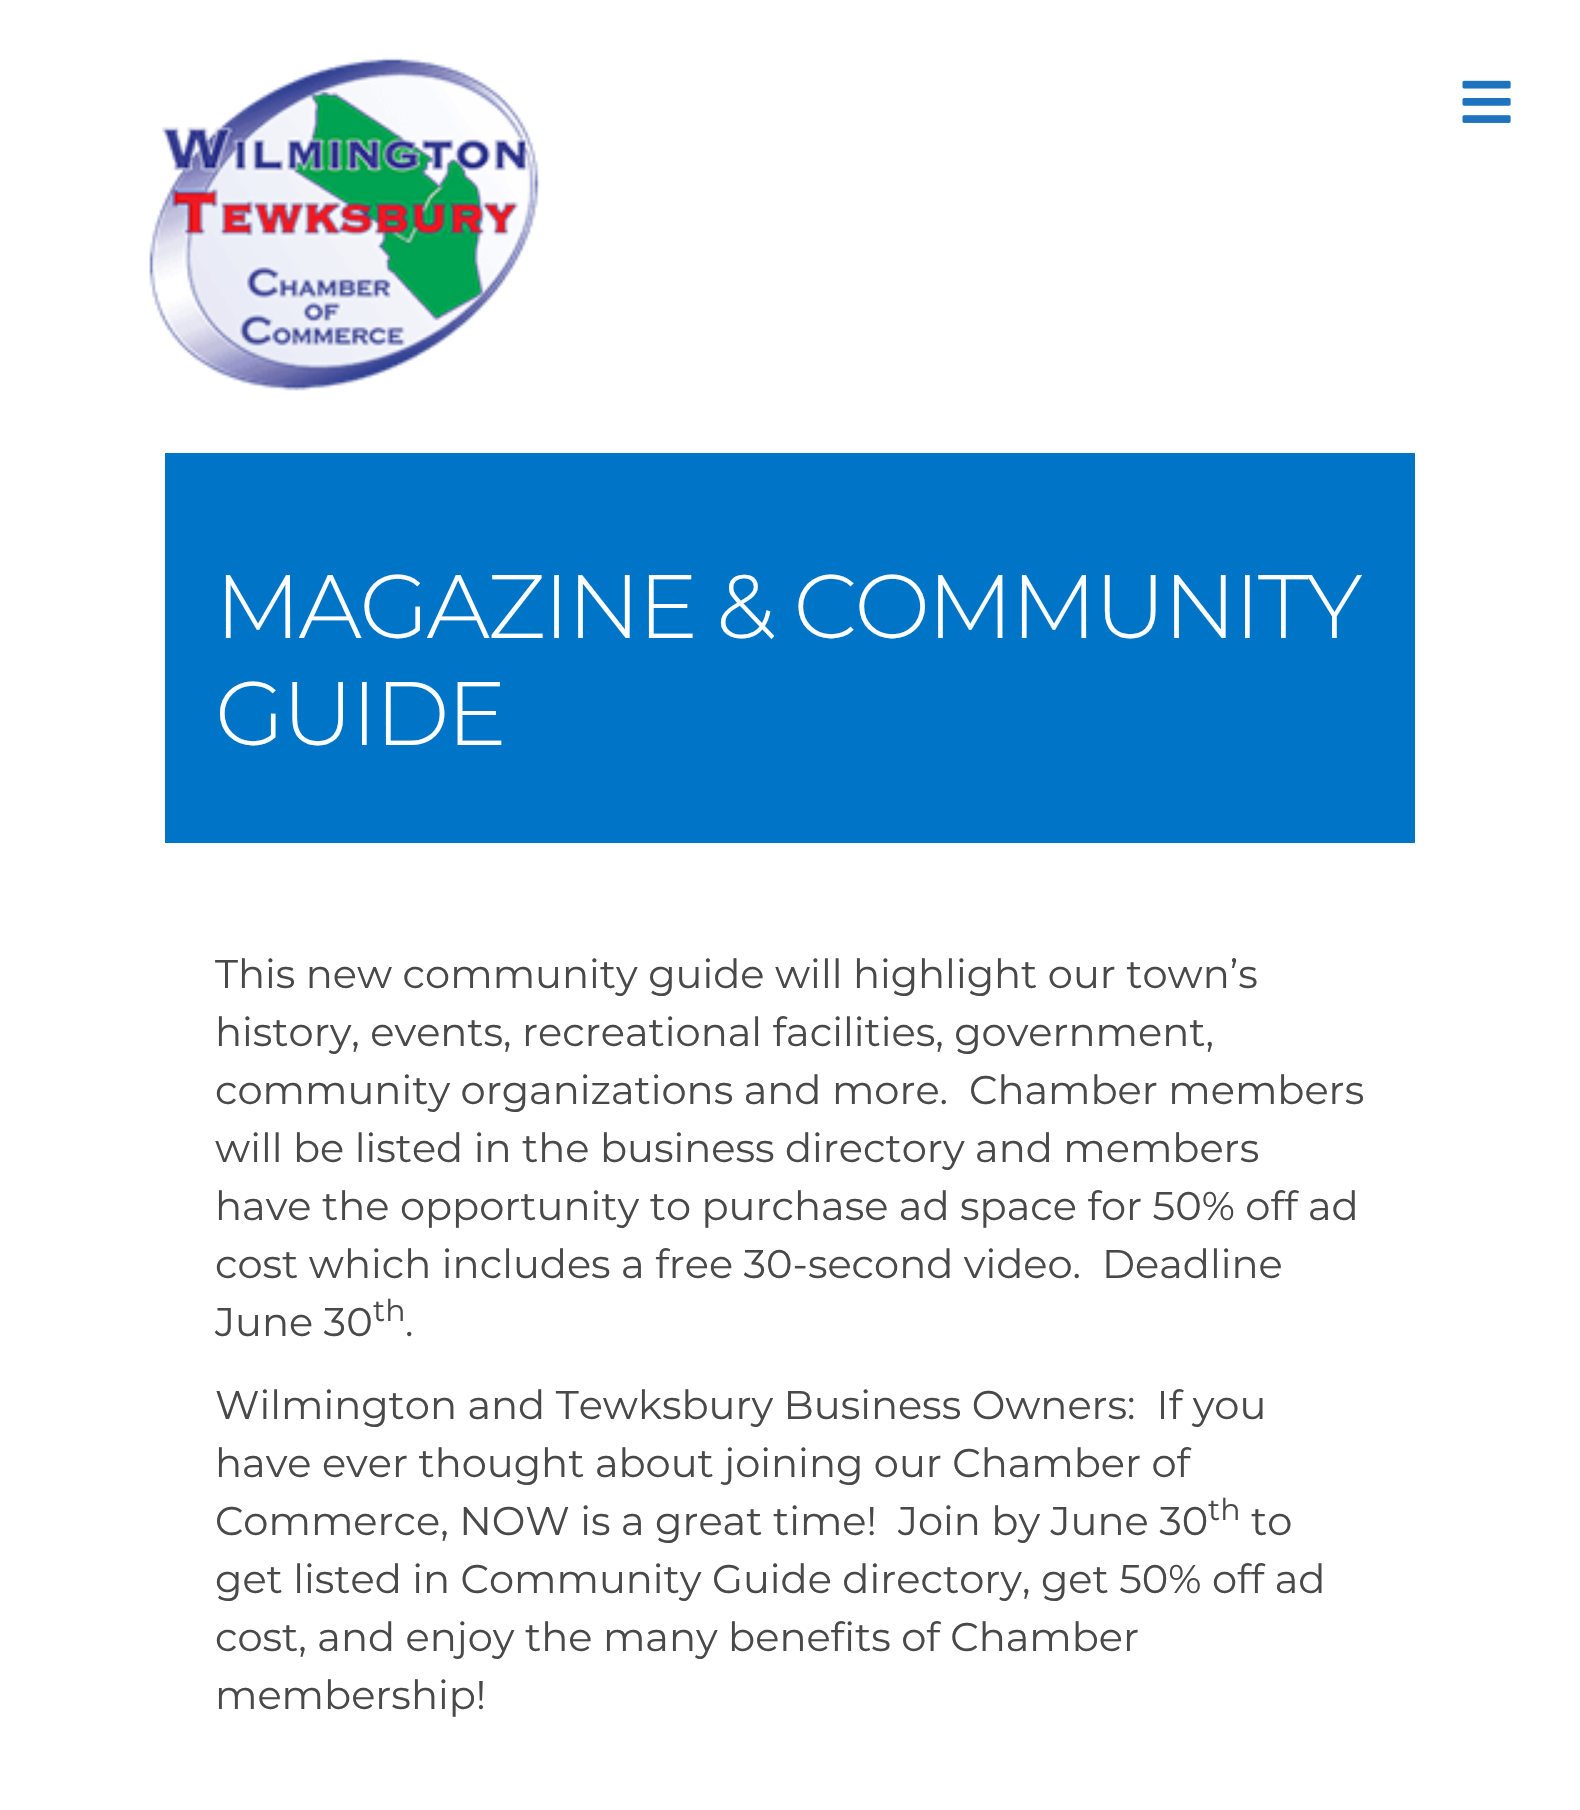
void draw(SkCanvas* canvas) {
    SkPaint paint;
    paint.setAntiAlias(true);
    auto face = [&](const char* family, int weight, float size, bool italic = false) {
        SkFontStyle style(weight, SkFontStyle::kNormal_Width,
            italic ? SkFontStyle::kItalic_Slant : SkFontStyle::kUpright_Slant);
        SkFont result(fontMgr->matchFamilyStyle(family, style), size);
        result.setSubpixel(true);
        return result;
    };
    auto write = [&](const char* s, float x, float y, const SkFont& font, SkColor color) {
        SkPaint ink(SkColor4f::FromColor(color));
        ink.setAntiAlias(true);
        canvas->drawString(s, x, y, font, ink);
    };
    auto writeSpaced = [&](const char* s, float x, float y, const SkFont& font, const SkPaint& ink, float letter, float word) {
        std::vector<SkGlyphID> glyphs(font.countText(s, strlen(s), SkTextEncoding::kUTF8));
        std::vector<float> xs(glyphs.size());
        font.textToGlyphs(s, strlen(s), SkTextEncoding::kUTF8, glyphs);
        font.getXPos(glyphs, xs, x);
        float extra = 0;
        for (size_t i = 0; i < glyphs.size(); i++) {
            xs[i] += extra;
            extra += letter + word * (glyphs[i] == font.unicharToGlyph(' '));
        }
        canvas->drawTextBlob(SkTextBlob::MakeFromPosHGlyphs(glyphs, xs, y, font), 0, 0, ink);
    };
    auto block = [&](float x, float y, float w, float h, SkColor color) {
        SkPaint ink(SkColor4f::FromColor(color));
        ink.setAntiAlias(true);
        canvas->drawRect(SkRect::MakeXYWH(x, y, w, h), ink);
    };
    auto paste = [&](const char* path, float x, float y, float w, float h) {
        auto image = SkImages::DeferredFromEncodedData(SkData::MakeFromFileName(path));
        canvas->drawImageRect(image, SkRect::MakeXYWH(x, y, w, h), SkSamplingOptions());
    };
    canvas->clear(SK_ColorWHITE);
    paste("pic1.png", 149, 57, 391, 334);
    paste("pic2.png", 1462, 80, 49, 43);
    block(165, 453, 1250, 390, SkColorSetRGB(0, 116, 198));
    auto kFont1 = face("Montserrat", 300, 90);
    paint.setColor(SK_ColorWHITE);
    writeSpaced("MAGAZINE & COMMUNITY", 215, 638, kFont1, paint, -2.5f, 0);
    writeSpaced("GUIDE", 215, 745, kFont1, paint, -2.5f, 0);
    auto kFont2 = face("Montserrat", 400, 40);
    write("This new community guide will highlight our town’s", 215, 988, kFont2, SkColorSetRGB(73, 73, 73));
    write("history, events, recreational facilities, government,", 215, 1046, kFont2, SkColorSetRGB(73, 73, 73));
    write("community organizations and more.  Chamber members", 215, 1104, kFont2, SkColorSetRGB(73, 73, 73));
    write("will be listed in the business directory and members", 215, 1162, kFont2, SkColorSetRGB(73, 73, 73));
    write("have the opportunity to purchase ad space for 50% off ad", 215, 1220, kFont2, SkColorSetRGB(73, 73, 73));
    write("cost which includes a free 30-second video.  Deadline", 215, 1278, kFont2, SkColorSetRGB(73, 73, 73));
    write("June 30", 215, 1336, kFont2, SkColorSetRGB(73, 73, 73));
    auto kFont3 = face("Montserrat", 400, 30);
    write("th", 373, 1321, kFont3, SkColorSetRGB(73, 73, 73));
    write(".", 405, 1336, kFont2, SkColorSetRGB(73, 73, 73));
    write("Wilmington and Tewksbury Business Owners:  If you", 215, 1419, kFont2, SkColorSetRGB(73, 73, 73));
    write("have ever thought about joining our Chamber of", 215, 1477, kFont2, SkColorSetRGB(73, 73, 73));
    write("Commerce, NOW is a great time!  Join by June 30", 215, 1535, kFont2, SkColorSetRGB(73, 73, 73));
    write("th", 1208, 1520, kFont3, SkColorSetRGB(73, 73, 73));
    write("to", 1251, 1535, kFont2, SkColorSetRGB(73, 73, 73));
    write("get listed in Community Guide directory, get 50% off ad", 215, 1593, kFont2, SkColorSetRGB(73, 73, 73));
    write("cost, and enjoy the many benefits of Chamber", 215, 1651, kFont2, SkColorSetRGB(73, 73, 73));
    write("membership!", 215, 1709, kFont2, SkColorSetRGB(73, 73, 73));
}
